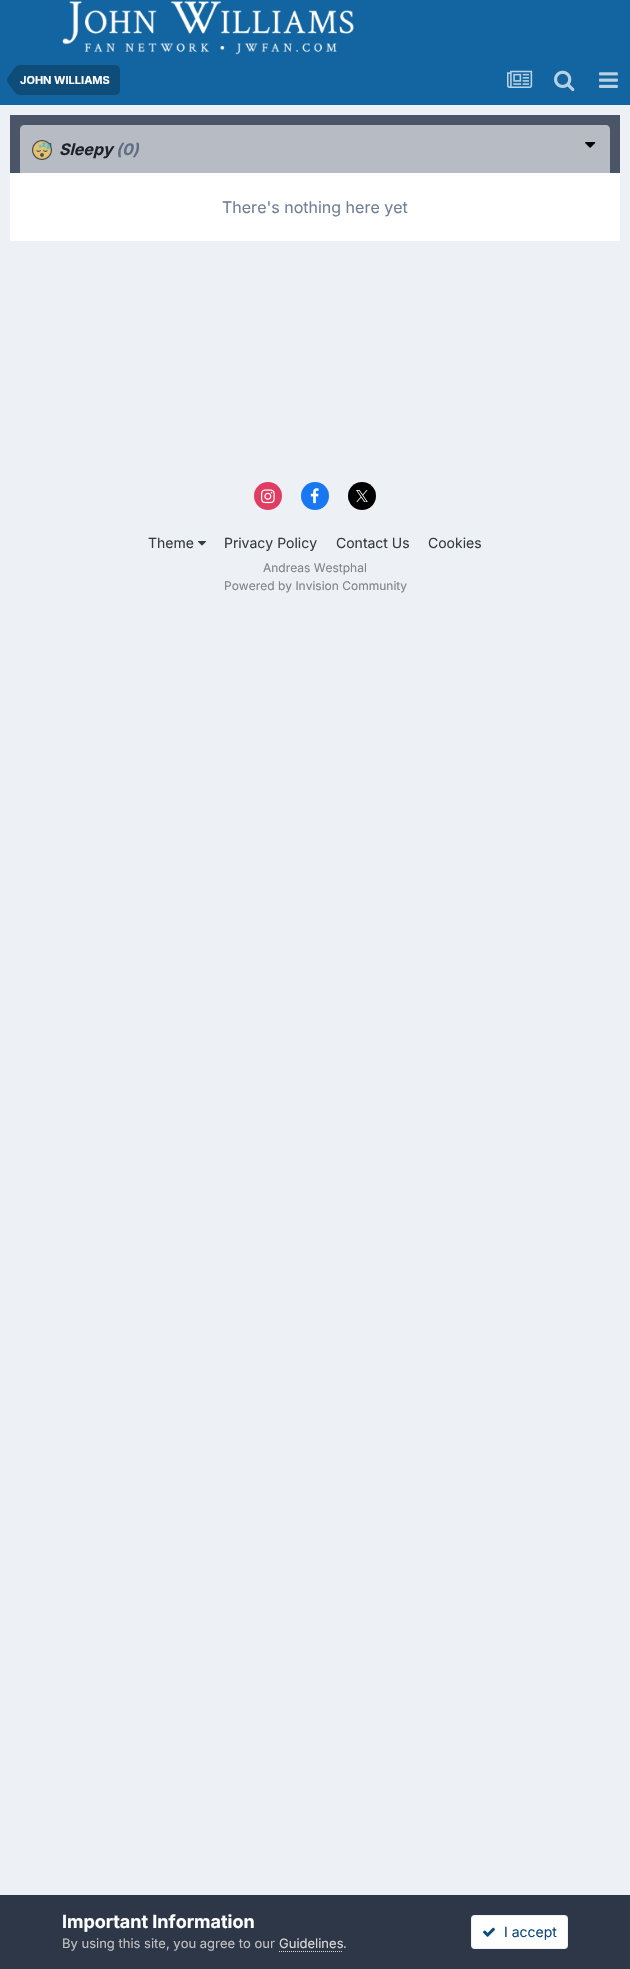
void draw(SkCanvas* canvas) {
    SkPaint paint;
    paint.setAntiAlias(true);
    auto face = [&](const char* family, int weight, float size, bool italic = false) {
        SkFontStyle style(weight, SkFontStyle::kNormal_Width,
            italic ? SkFontStyle::kItalic_Slant : SkFontStyle::kUpright_Slant);
        SkFont result(fontMgr->matchFamilyStyle(family, style), size);
        result.setSubpixel(true);
        return result;
    };
    auto write = [&](const char* s, float x, float y, const SkFont& font, SkColor color) {
        SkPaint ink(SkColor4f::FromColor(color));
        ink.setAntiAlias(true);
        canvas->drawString(s, x, y, font, ink);
    };
    auto block = [&](float x, float y, float w, float h, SkColor color) {
        SkPaint ink(SkColor4f::FromColor(color));
        ink.setAntiAlias(true);
        canvas->drawRect(SkRect::MakeXYWH(x, y, w, h), ink);
    };
    auto card = [&](float x, float y, float w, float h, float radius, SkColor color) {
        SkPaint ink(SkColor4f::FromColor(color));
        ink.setAntiAlias(true);
        canvas->drawRoundRect(SkRect::MakeXYWH(x, y, w, h), radius, radius, ink);
    };
    auto paste = [&](const char* path, float x, float y, float w, float h) {
        auto image = SkImages::DeferredFromEncodedData(SkData::MakeFromFileName(path));
        canvas->drawImageRect(image, SkRect::MakeXYWH(x, y, w, h), SkSamplingOptions());
    };
    canvas->clear(SkColorSetRGB(237, 240, 244));
    block(0, 0, 630, 105, SkColorSetRGB(18, 101, 161));
    paste("pic1.png", 62, 1, 292, 54);
    paint.setColor(SkColorSetRGB(14, 76, 121));
    canvas->drawPath(SkPathBuilder().moveTo(20, 65).lineTo(115, 65).cubicTo(118, 65, 120, 67, 120, 70).lineTo(120, 90).cubicTo(120, 93, 118, 95, 115, 95).lineTo(20, 95).close().detach(), paint);
    canvas->drawPath(SkPathBuilder().moveTo(20, 80).lineTo(20, 95).cubicTo(15.5f, 95, 13.5f, 90.5f, 11, 87).cubicTo(9.5f, 85, 7, 83, 7, 80).close().moveTo(20, 80).lineTo(7, 80).cubicTo(7, 77, 9.5f, 75, 11, 73).cubicTo(13.5f, 69.5f, 15.5f, 65, 20, 65).close().detach(), paint);
    auto kFont1 = face("Inter", 700, 11);
    write("JOHN WILLIAMS", 20, 84, kFont1, SK_ColorWHITE);
    paste("pic2.png", 507, 70, 26, 18);
    paste("pic3.png", 554, 70, 21, 22);
    paste("pic4.png", 599, 72, 19, 16);
    block(10, 115, 610, 58, SkColorSetRGB(74, 85, 104));
    paint.setColor(SkColorSetRGB(183, 187, 195));
    canvas->drawPath(SkPathBuilder().moveTo(24, 125).lineTo(606, 125).cubicTo(608, 125, 610, 127, 610, 129).lineTo(610, 173).lineTo(20, 173).lineTo(20, 129).cubicTo(20, 127, 22, 125, 24, 125).close().detach(), paint);
    paste("pic5.png", 32, 140, 20, 20);
    auto kFont2 = face("Inter", 700, 16, true);
    write("Sleepy", 59, 155, kFont2, SkColorSetRGB(30, 34, 42));
    write("(0)", 116, 155, kFont2, SkColorSetRGB(97, 111, 132));
    paste("pic6.png", 585, 142, 11, 6);
    block(10, 173, 610, 68, SK_ColorWHITE);
    auto kFont3 = face("Inter", 400, 16);
    write("There's nothing here yet", 222, 213, kFont3, SkColorSetRGB(113, 128, 150));
    paint.setColor(SkColorSetRGB(225, 61, 98));
    canvas->drawCircle(268, 496, 14, paint);
    paste("pic7.png", 261, 489, 14, 15);
    paint.setColor(SkColorSetRGB(23, 120, 242));
    canvas->drawCircle(315, 496, 14, paint);
    paste("pic8.png", 310, 488, 9, 16);
    paint.setColor(SK_ColorBLACK);
    canvas->drawCircle(362, 496, 14, paint);
    paste("pic9.png", 356, 490, 12, 12);
    auto kFont4 = face("Inter", 400, 14);
    write("Theme", 148, 548, kFont4, SkColorSetRGB(53, 60, 65));
    paste("pic10.png", 198, 541, 8, 5);
    write("Privacy Policy", 224, 548, kFont4, SkColorSetRGB(53, 60, 65));
    write("Contact Us", 336, 548, kFont4, SkColorSetRGB(53, 60, 65));
    write("Cookies", 428, 548, kFont4, SkColorSetRGB(53, 60, 65));
    auto kFont5 = face("Inter", 400, 12);
    write("Andreas Westphal", 263, 572, kFont5, SkColorSetRGB(127, 132, 137));
    write("Powered by Invision Community", 224, 590, kFont5, SkColorSetRGB(127, 132, 137));
    block(0, 1895, 630, 74, SkColorSetRGB(45, 55, 72));
    auto kFont6 = face("Inter", 700, 18);
    write("Important Information", 62, 1928, kFont6, SK_ColorWHITE);
    auto kFont7 = face("Inter", 400, 13);
    write("By using this site, you agree to our", 62, 1948, kFont7, SkColorSetRGB(192, 192, 192));
    write("Guidelines", 279, 1948, kFont7, SkColorSetRGB(218, 218, 218));
    paint.setStyle(SkPaint::kStroke_Style);
    paint.setStrokeWidth(1);
    paint.setColor(SkColorSetRGB(218, 218, 218));
    paint.setPathEffect(SkDashPathEffect::Make({{1, 1}}, 0));
    canvas->drawPath(SkPathBuilder().moveTo(279, 1951.5f).lineTo(343, 1951.5f).detach(), paint);
    paint.setPathEffect(nullptr);
    write(".", 343, 1948, kFont7, SkColorSetRGB(192, 192, 192));
    card(471, 1915, 97, 34, 4, SK_ColorWHITE);
    paint.setColor(SkColorSetARGB(18, 14, 76, 121));
    canvas->drawRoundRect(SkRect::MakeXYWH(471.5f, 1915.5f, 96, 33), 3.5f, 3.5f, paint);
    paste("pic11.png", 483, 1927, 12, 10);
    write("I accept", 504, 1937, kFont4, SkColorSetRGB(14, 76, 121));
}
